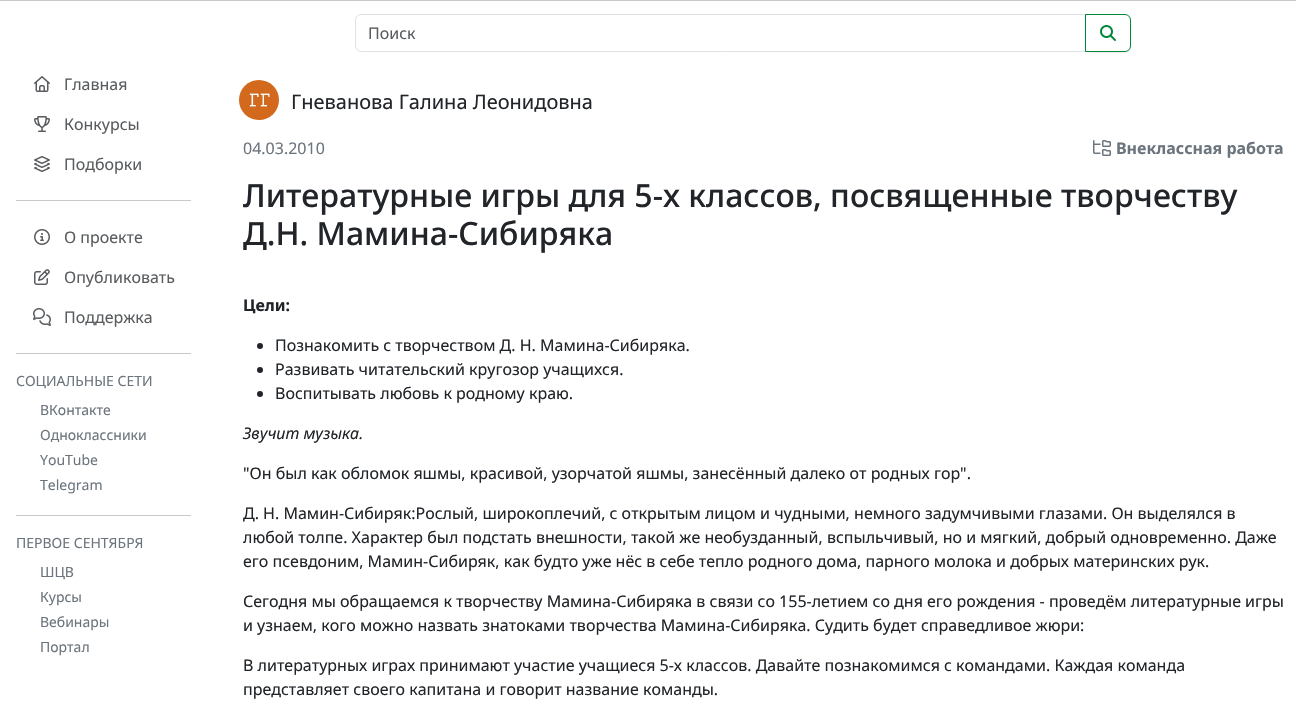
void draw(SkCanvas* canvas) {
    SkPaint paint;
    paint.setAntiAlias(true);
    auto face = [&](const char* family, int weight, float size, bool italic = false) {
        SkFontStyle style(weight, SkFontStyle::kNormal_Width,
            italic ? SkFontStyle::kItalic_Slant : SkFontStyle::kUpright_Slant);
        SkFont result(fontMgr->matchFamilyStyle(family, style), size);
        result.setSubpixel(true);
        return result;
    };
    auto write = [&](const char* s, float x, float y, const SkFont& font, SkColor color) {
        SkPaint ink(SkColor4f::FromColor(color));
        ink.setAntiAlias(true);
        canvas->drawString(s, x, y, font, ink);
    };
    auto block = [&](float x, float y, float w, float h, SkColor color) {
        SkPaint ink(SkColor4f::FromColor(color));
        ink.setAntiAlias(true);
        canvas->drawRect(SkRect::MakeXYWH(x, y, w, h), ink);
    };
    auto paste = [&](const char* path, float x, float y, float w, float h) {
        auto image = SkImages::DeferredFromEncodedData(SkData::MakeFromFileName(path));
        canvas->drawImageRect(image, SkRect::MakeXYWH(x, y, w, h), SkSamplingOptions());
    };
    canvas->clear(SK_ColorWHITE);
    block(0, 0, 1296, 1, SkColorSetRGB(200, 201, 202));
    paint.setStyle(SkPaint::kStroke_Style);
    paint.setStrokeWidth(1);
    paint.setColor(SkColorSetRGB(222, 226, 230));
    canvas->drawPath(SkPathBuilder().moveTo(361, 14.5f).lineTo(1085.5f, 14.5f).lineTo(1085.5f, 51.5f).lineTo(361, 51.5f).cubicTo(358, 51.5f, 355.5f, 49, 355.5f, 46).lineTo(355.5f, 20).cubicTo(355.5f, 17, 358, 14.5f, 361, 14.5f).close().detach(), paint);
    auto kFont1 = face("Noto Sans", 400, 16);
    write("Поиск", 368, 39, kFont1, SkColorSetRGB(89, 92, 95));
    canvas->save();
    canvas->clipPath(SkPathBuilder(SkPathFillType::kEvenOdd).moveTo(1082, 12).lineTo(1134, 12).lineTo(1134, 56).lineTo(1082, 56).close().moveTo(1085, 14).lineTo(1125, 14).cubicTo(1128.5f, 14, 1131, 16.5f, 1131, 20).lineTo(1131, 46).cubicTo(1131, 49.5f, 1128.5f, 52, 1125, 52).lineTo(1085, 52).close().detach(), true);
    paint.setStyle(SkPaint::kFill_Style);
    paint.setColor(SkColorSetARGB(18, 0, 0, 0));
    paint.setMaskFilter(SkMaskFilter::MakeBlur(kNormal_SkBlurStyle, 0.5f));
    canvas->drawRoundRect(SkRect::MakeXYWH(1085, 15, 46, 38), 6, 6, paint);
    paint.setMaskFilter(nullptr);
    canvas->restore();
    paint.setStyle(SkPaint::kStroke_Style);
    paint.setColor(SkColorSetRGB(0, 135, 56));
    canvas->drawPath(SkPathBuilder().moveTo(1085.5f, 14.5f).lineTo(1125, 14.5f).cubicTo(1128, 14.5f, 1130.5f, 17, 1130.5f, 20).lineTo(1130.5f, 46).cubicTo(1130.5f, 49, 1128, 51.5f, 1125, 51.5f).lineTo(1085.5f, 51.5f).close().detach(), paint);
    paste("pic1.png", 1100, 25, 16, 16);
    paste("pic2.png", 34, 76, 16, 16);
    write("Главная", 64, 90, kFont1, SkColorSetRGB(89, 92, 95));
    paste("pic3.png", 34, 116, 16, 16);
    write("Конкурсы", 64, 130, kFont1, SkColorSetRGB(89, 92, 95));
    paste("pic4.png", 34, 156, 16, 16);
    write("Подборки", 64, 170, kFont1, SkColorSetRGB(89, 92, 95));
    block(16, 200, 175, 1, SkColorSetRGB(200, 201, 202));
    paste("pic5.png", 34, 229, 16, 16);
    write("О проекте", 64, 243, kFont1, SkColorSetRGB(89, 92, 95));
    paste("pic6.png", 34, 269, 16, 16);
    write("Опубликовать", 64, 283, kFont1, SkColorSetRGB(89, 92, 95));
    paste("pic7.png", 33, 308, 18, 18);
    write("Поддержка", 64, 323, kFont1, SkColorSetRGB(89, 92, 95));
    block(16, 353, 175, 1, SkColorSetRGB(200, 201, 202));
    auto kFont2 = face("Noto Sans", 400, 14);
    write("СОЦИАЛЬНЫЕ СЕТИ", 16, 386, kFont2, SkColorSetRGB(108, 117, 125));
    write("ВКонтакте", 40, 415, kFont2, SkColorSetRGB(108, 117, 125));
    write("Одноклассники", 40, 440, kFont2, SkColorSetRGB(108, 117, 125));
    write("YouTube", 40, 465, kFont2, SkColorSetRGB(108, 117, 125));
    write("Telegram", 40, 490, kFont2, SkColorSetRGB(108, 117, 125));
    block(16, 515, 175, 1, SkColorSetRGB(200, 201, 202));
    write("ПЕРВОЕ СЕНТЯБРЯ", 16, 548, kFont2, SkColorSetRGB(108, 117, 125));
    write("ШЦВ", 40, 577, kFont2, SkColorSetRGB(108, 117, 125));
    write("Курсы", 40, 602, kFont2, SkColorSetRGB(108, 117, 125));
    write("Вебинары", 40, 627, kFont2, SkColorSetRGB(108, 117, 125));
    write("Портал", 40, 652, kFont2, SkColorSetRGB(108, 117, 125));
    paste("pic8.png", 239, 80, 40, 40);
    auto kFont3 = face("Noto Sans", 400, 20);
    write("Гневанова Галина Леонидовна", 291, 109, kFont3, SkColorSetRGB(33, 37, 41));
    write("04.03.2010", 243, 154, kFont1, SkColorSetRGB(108, 117, 125));
    paste("pic9.png", 1093, 140, 18, 16);
    auto kFont4 = face("Noto Sans", 700, 16);
    write("Внеклассная работа", 1116, 154, kFont4, SkColorSetRGB(108, 117, 125));
    auto kFont5 = face("Noto Sans", 500, 32);
    write("Литературные игры для 5-х классов, посвященные творчеству", 243, 207, kFont5, SkColorSetRGB(33, 37, 41));
    write("Д.Н. Мамина-Сибиряка", 243, 245, kFont5, SkColorSetRGB(33, 37, 41));
    write("Цели:", 243, 311, kFont4, SkColorSetRGB(33, 37, 41));
    paint.setStyle(SkPaint::kFill_Style);
    paint.setColor(SkColorSetRGB(33, 37, 41));
    canvas->drawCircle(260, 346, 3, paint);
    write("Познакомить с творчеством Д. Н. Мамина-Сибиряка.", 275, 351, kFont1, SkColorSetRGB(33, 37, 41));
    canvas->drawCircle(260, 370, 3, paint);
    write("Развивать читательский кругозор учащихся.", 275, 375, kFont1, SkColorSetRGB(33, 37, 41));
    canvas->drawCircle(260, 394, 3, paint);
    write("Воспитывать любовь к родному краю.", 275, 399, kFont1, SkColorSetRGB(33, 37, 41));
    auto kFont6 = face("Noto Sans", 400, 16, true);
    write("Звучит музыка.", 243, 439, kFont6, SkColorSetRGB(33, 37, 41));
    write("\"Он был как обломок яшмы, красивой, узорчатой яшмы, занесённый далеко от родных гор\".", 243, 479, kFont1, SkColorSetRGB(33, 37, 41));
    write("Д. Н. Мамин-Сибиряк:Рослый, широкоплечий, с открытым лицом и чудными, немного задумчивыми глазами. Он выделялся в", 243, 519, kFont1, SkColorSetRGB(33, 37, 41));
    write("любой толпе. Характер был подстать внешности, такой же необузданный, вспыльчивый, но и мягкий, добрый одновременно. Даже", 243, 543, kFont1, SkColorSetRGB(33, 37, 41));
    write("его псевдоним, Мамин-Сибиряк, как будто уже нёс в себе тепло родного дома, парного молока и добрых материнских рук.", 243, 567, kFont1, SkColorSetRGB(33, 37, 41));
    write("Сегодня мы обращаемся к творчеству Мамина-Сибиряка в связи со 155-летием со дня его рождения - проведём литературные игры", 243, 607, kFont1, SkColorSetRGB(33, 37, 41));
    write("и узнаем, кого можно назвать знатоками творчества Мамина-Сибиряка. Судить будет справедливое жюри:", 243, 631, kFont1, SkColorSetRGB(33, 37, 41));
    write("В литературных играх принимают участие учащиеся 5-х классов. Давайте познакомимся с командами. Каждая команда", 243, 671, kFont1, SkColorSetRGB(33, 37, 41));
    write("представляет своего капитана и говорит название команды.", 243, 695, kFont1, SkColorSetRGB(33, 37, 41));
}
